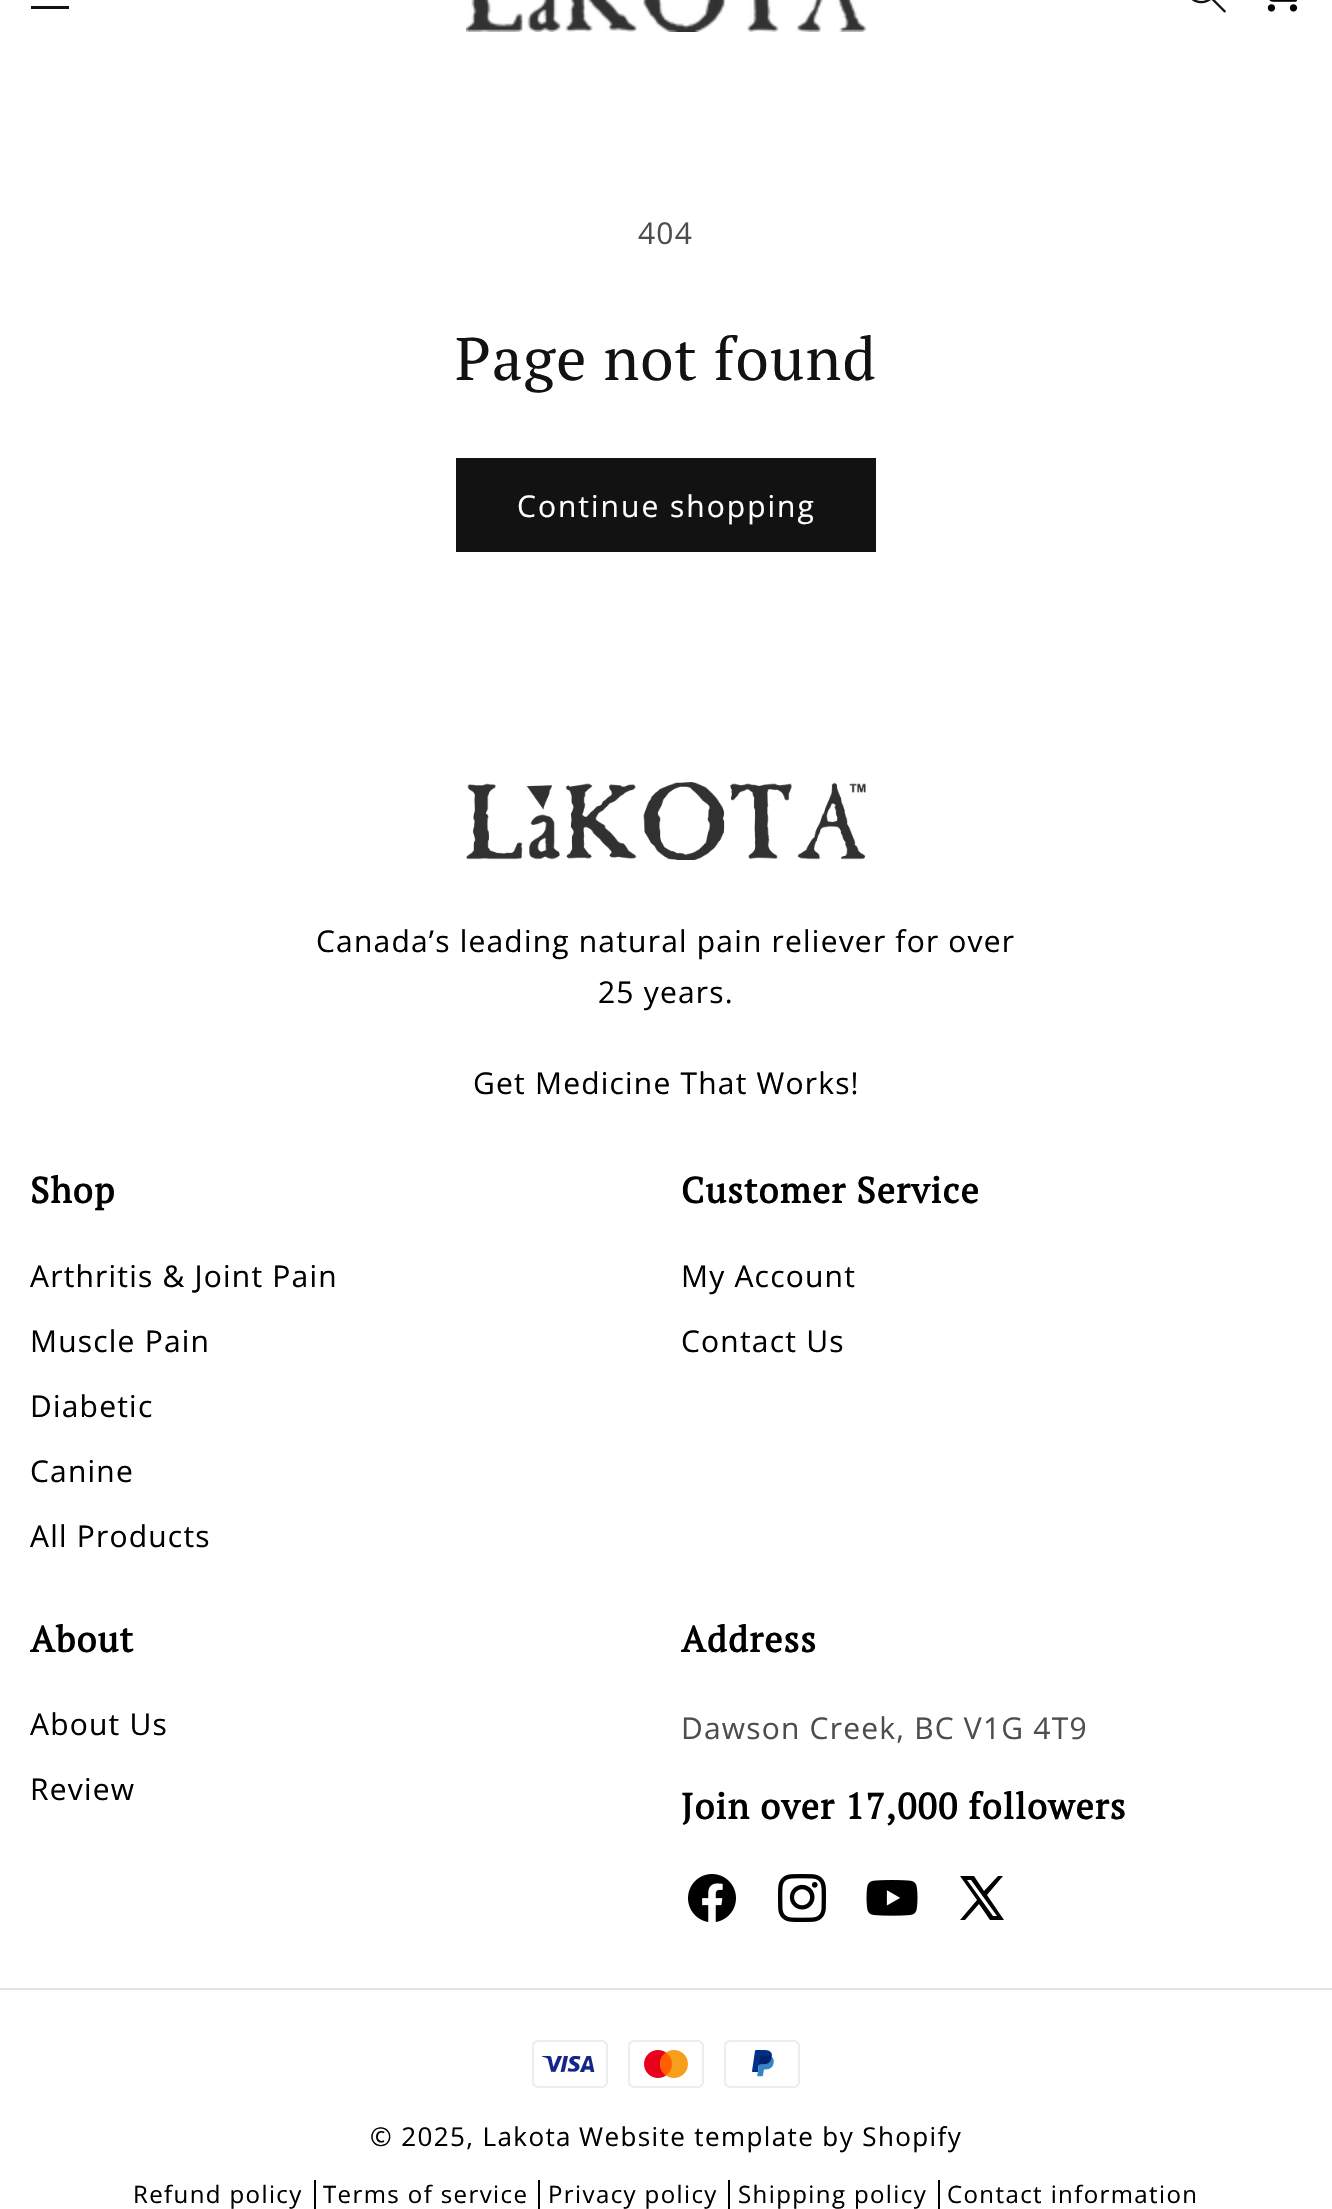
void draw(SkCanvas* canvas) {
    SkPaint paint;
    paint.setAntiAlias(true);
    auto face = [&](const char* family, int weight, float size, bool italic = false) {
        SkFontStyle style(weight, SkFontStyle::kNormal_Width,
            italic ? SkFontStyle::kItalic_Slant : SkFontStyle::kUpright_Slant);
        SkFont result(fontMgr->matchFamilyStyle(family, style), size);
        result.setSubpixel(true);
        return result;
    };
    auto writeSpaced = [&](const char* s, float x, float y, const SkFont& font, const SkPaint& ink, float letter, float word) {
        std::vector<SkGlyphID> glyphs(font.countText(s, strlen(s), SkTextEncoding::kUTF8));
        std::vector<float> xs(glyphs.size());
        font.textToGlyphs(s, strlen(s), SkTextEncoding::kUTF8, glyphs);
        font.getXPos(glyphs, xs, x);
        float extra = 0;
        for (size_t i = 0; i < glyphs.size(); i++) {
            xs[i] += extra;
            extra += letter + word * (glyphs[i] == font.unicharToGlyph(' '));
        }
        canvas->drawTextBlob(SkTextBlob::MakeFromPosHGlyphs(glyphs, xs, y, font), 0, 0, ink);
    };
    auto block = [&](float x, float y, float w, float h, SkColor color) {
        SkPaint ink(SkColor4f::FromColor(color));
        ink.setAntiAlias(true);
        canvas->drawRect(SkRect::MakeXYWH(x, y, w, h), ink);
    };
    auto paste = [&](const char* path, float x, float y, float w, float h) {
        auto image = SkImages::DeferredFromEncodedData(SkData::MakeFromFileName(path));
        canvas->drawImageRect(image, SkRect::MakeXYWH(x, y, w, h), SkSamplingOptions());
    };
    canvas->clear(SK_ColorWHITE);
    block(31, 6, 38, 3, SkColorSetRGB(18, 18, 18));
    paste("pic1.png", 466, 0, 400, 32);
    paste("pic2.png", 1191, 0, 35, 13);
    paste("pic3.png", 1267, 0, 31, 12);
    auto kFont1 = face("Open Sans", 400, 30);
    paint.setColor(SkColorSetRGB(77, 77, 77));
    writeSpaced("404", 638, 244, kFont1, paint, 1.2f, 0);
    auto kFont2 = face("PT Serif", 400, 60);
    paint.setColor(SkColorSetRGB(18, 18, 18));
    writeSpaced("Page not found", 455, 380, kFont2, paint, 1.2f, 0);
    block(456, 458, 420, 94, SkColorSetRGB(18, 18, 18));
    paint.setColor(SK_ColorWHITE);
    writeSpaced("Continue shopping", 517, 517, kFont1, paint, 2, 0);
    paste("pic4.png", 466, 782, 400, 78);
    paint.setColor(SK_ColorBLACK);
    writeSpaced("Canada’s leading natural pain reliever for over", 316, 952, kFont1, paint, 1.2f, 0);
    writeSpaced("25 years.", 598, 1003, kFont1, paint, 1.2f, 0);
    writeSpaced("Get Medicine That Works!", 473, 1094, kFont1, paint, 1.2f, 0);
    auto kFont3 = face("PT Serif", 700, 36);
    writeSpaced("Shop", 30, 1203, kFont3, paint, 1.2f, 0);
    writeSpaced("Arthritis & Joint Pain", 30, 1287, kFont1, paint, 1.2f, 0);
    writeSpaced("Muscle Pain", 30, 1352, kFont1, paint, 1.2f, 0);
    writeSpaced("Diabetic", 30, 1417, kFont1, paint, 1.2f, 0);
    writeSpaced("Canine", 30, 1482, kFont1, paint, 1.2f, 0);
    writeSpaced("All Products", 30, 1547, kFont1, paint, 1.2f, 0);
    writeSpaced("Customer Service", 681, 1203, kFont3, paint, 1.2f, 0);
    writeSpaced("My Account", 681, 1287, kFont1, paint, 1.2f, 0);
    writeSpaced("Contact Us", 681, 1352, kFont1, paint, 1.2f, 0);
    writeSpaced("About", 30, 1652, kFont3, paint, 1.2f, 0);
    writeSpaced("About Us", 30, 1735, kFont1, paint, 1.2f, 0);
    writeSpaced("Review", 30, 1800, kFont1, paint, 1.2f, 0);
    writeSpaced("Address", 681, 1652, kFont3, paint, 1.2f, 0);
    paint.setColor(SkColorSetRGB(77, 77, 77));
    writeSpaced("Dawson Creek, BC V1G 4T9", 681, 1739, kFont1, paint, 1.2f, 0);
    paint.setColor(SK_ColorBLACK);
    writeSpaced("Join over 17,000 followers", 681, 1819, kFont3, paint, 1.2f, 0);
    paste("pic5.png", 688, 1874, 48, 48);
    paste("pic6.png", 778, 1874, 48, 48);
    paste("pic7.png", 866, 1880, 52, 36);
    canvas->drawPath(SkPathBuilder(SkPathFillType::kEvenOdd).moveTo(974, 1876).lineTo(984, 1891).lineTo(998, 1876).lineTo(1003, 1876).lineTo(987, 1895).lineTo(1004, 1920).lineTo(990, 1920).lineTo(979, 1904).lineTo(965, 1920).lineTo(960, 1920).lineTo(977, 1900).lineTo(960, 1876).close().moveTo(993, 1916).lineTo(967, 1880).lineTo(971, 1880).lineTo(997, 1916).close().detach(), paint);
    block(0, 1988, 1332, 2, SkColorSetRGB(229, 227, 221));
    paste("pic8.png", 532, 2040, 76, 48);
    paste("pic9.png", 628, 2040, 76, 48);
    paste("pic10.png", 724, 2040, 76, 48);
    auto kFont4 = face("Open Sans", 400, 26);
    writeSpaced("© 2025, Lakota", 370, 2146, kFont4, paint, 1.4f, 0);
    writeSpaced("Website template by Shopify", 579, 2146, kFont4, paint, 1.4f, 0);
    auto kFont5 = face("Open Sans", 400, 24);
    writeSpaced("Refund policy", 133, 2203, kFont5, paint, 1.4f, 0);
    block(314, 2180, 2, 29, SK_ColorBLACK);
    writeSpaced("Terms of service", 323, 2203, kFont5, paint, 1.4f, 0);
    block(538, 2180, 2, 29, SK_ColorBLACK);
    writeSpaced("Privacy policy", 548, 2203, kFont5, paint, 1.4f, 0);
    block(728, 2180, 2, 29, SK_ColorBLACK);
    writeSpaced("Shipping policy", 738, 2203, kFont5, paint, 1.4f, 0);
    block(938, 2180, 2, 29, SK_ColorBLACK);
    writeSpaced("Contact information", 947, 2203, kFont5, paint, 1.4f, 0);
}
